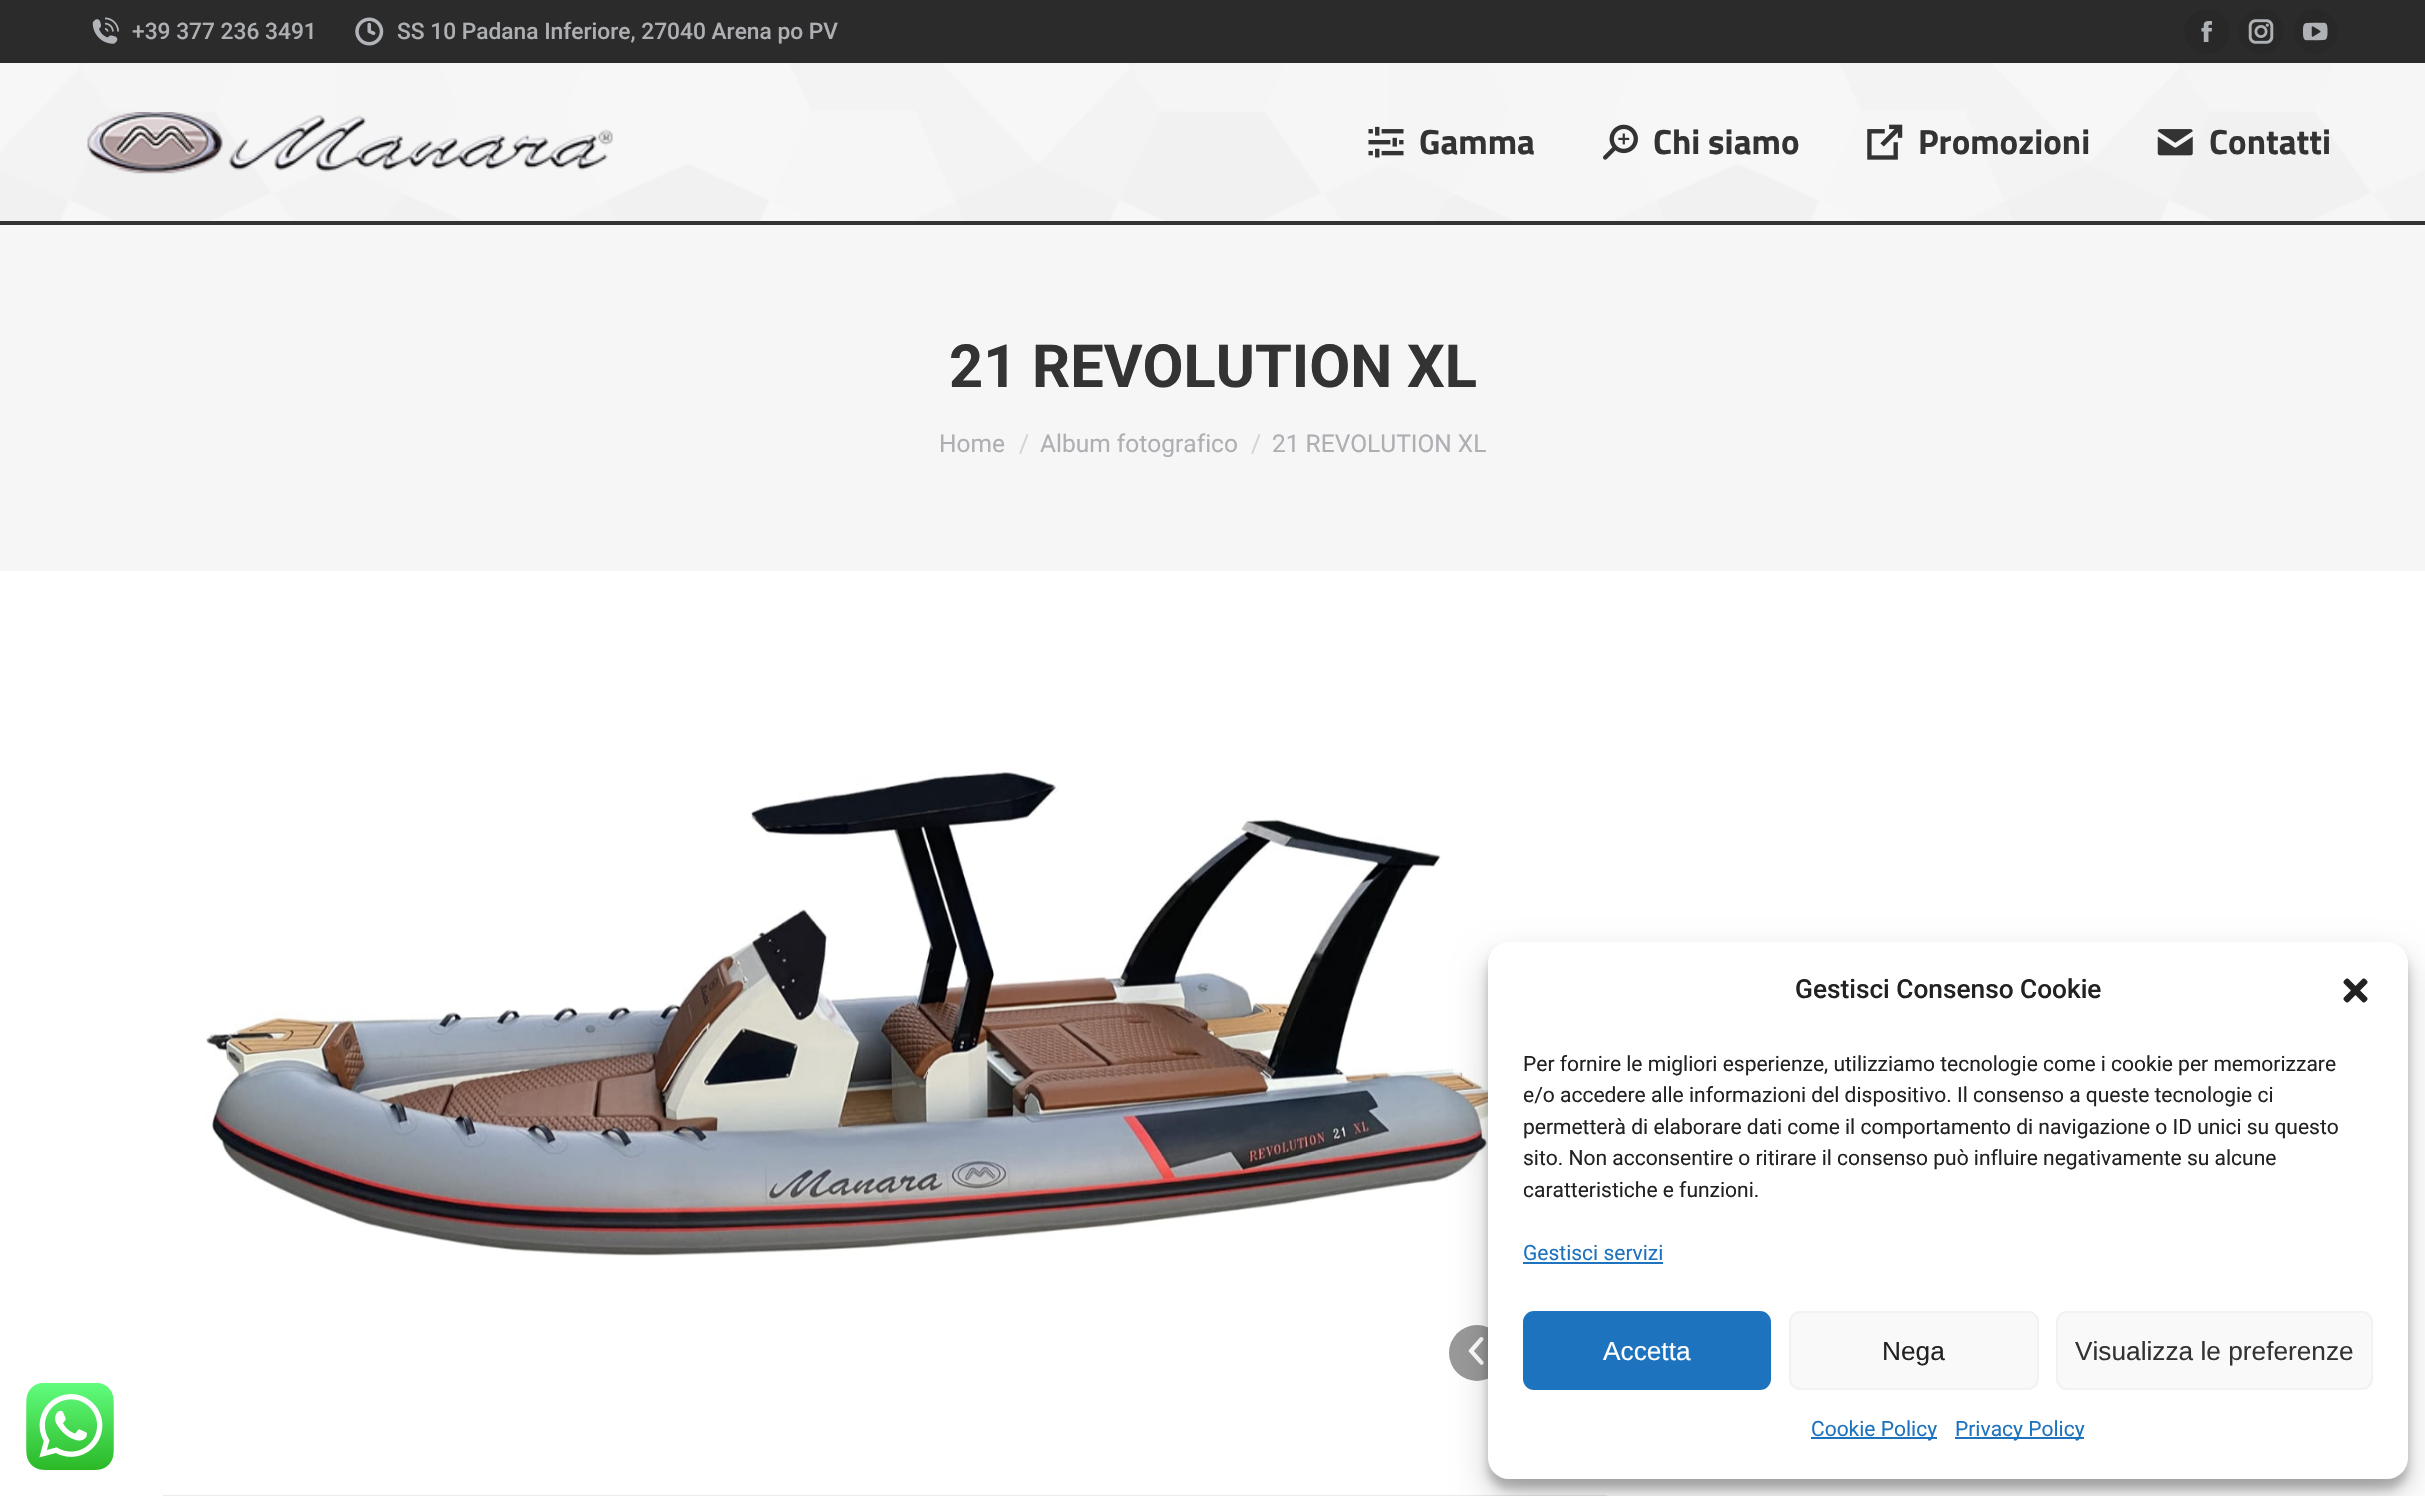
void draw(SkCanvas* canvas) {
    SkPaint paint;
    paint.setAntiAlias(true);
    auto face = [&](const char* family, int weight, float size, bool italic = false) {
        SkFontStyle style(weight, SkFontStyle::kNormal_Width,
            italic ? SkFontStyle::kItalic_Slant : SkFontStyle::kUpright_Slant);
        SkFont result(fontMgr->matchFamilyStyle(family, style), size);
        result.setSubpixel(true);
        return result;
    };
    auto write = [&](const char* s, float x, float y, const SkFont& font, SkColor color) {
        SkPaint ink(SkColor4f::FromColor(color));
        ink.setAntiAlias(true);
        canvas->drawString(s, x, y, font, ink);
    };
    auto block = [&](float x, float y, float w, float h, SkColor color) {
        SkPaint ink(SkColor4f::FromColor(color));
        ink.setAntiAlias(true);
        canvas->drawRect(SkRect::MakeXYWH(x, y, w, h), ink);
    };
    auto card = [&](float x, float y, float w, float h, float radius, SkColor color) {
        SkPaint ink(SkColor4f::FromColor(color));
        ink.setAntiAlias(true);
        canvas->drawRoundRect(SkRect::MakeXYWH(x, y, w, h), radius, radius, ink);
    };
    auto paste = [&](const char* path, float x, float y, float w, float h) {
        auto image = SkImages::DeferredFromEncodedData(SkData::MakeFromFileName(path));
        canvas->drawImageRect(image, SkRect::MakeXYWH(x, y, w, h), SkSamplingOptions());
    };
    canvas->clear(SK_ColorWHITE);
    paste("pic1.png", 0, 63, 2425, 158);
    block(0, 221, 2425, 4, SkColorSetRGB(51, 51, 51));
    block(0, 0, 2425, 63, SkColorSetRGB(43, 43, 43));
    paste("pic2.png", 92, 17, 27, 27);
    auto kFont1 = face("Roboto", 500, 22.75f);
    write("+39 377 236 3491", 132, 39, kFont1, SkColorSetRGB(173, 175, 179));
    paste("pic3.png", 355, 17, 29, 29);
    write("SS 10 Padana Inferiore, 27040 Arena po PV", 397, 39, kFont1, SkColorSetRGB(173, 175, 179));
    card(2184, 9, 46, 45, 22.5f, SkColorSetRGB(40, 40, 40));
    paste("pic4.png", 2201, 21, 11, 21);
    card(2238, 9, 46, 45, 22.5f, SkColorSetRGB(40, 40, 40));
    paste("pic5.png", 2248, 19, 26, 25);
    paint.setColor(SkColorSetRGB(40, 40, 40));
    canvas->drawCircle(2315.5f, 31.5f, 22.5f, paint);
    paste("pic6.png", 2303, 22, 25, 19);
    paste("pic7.png", 87, 112, 526, 62);
    paste("pic8.png", 1368, 126, 36, 32);
    auto kFont2 = face("Titillium Web", 700, 35);
    write("Gamma", 1419, 154, kFont2, SkColorSetRGB(51, 51, 51));
    paste("pic9.png", 1603, 124, 35, 36);
    write("Chi siamo", 1653, 154, kFont2, SkColorSetRGB(51, 51, 51));
    paste("pic10.png", 1867, 124, 36, 36);
    write("Promozioni", 1918, 154, kFont2, SkColorSetRGB(51, 51, 51));
    paste("pic11.png", 2157, 129, 36, 27);
    write("Contatti", 2209, 154, kFont2, SkColorSetRGB(51, 51, 51));
    block(0, 225, 2425, 346, SkColorSetRGB(246, 246, 246));
    auto kFont3 = face("Roboto", 700, 59.5f);
    write("21 REVOLUTION XL", 949, 387, kFont3, SkColorSetRGB(51, 51, 51));
    auto kFont4 = face("Roboto", 400, 24.5f);
    write("Home", 939, 452, kFont4, SkColorSetRGB(173, 175, 179));
    write("/", 1019, 452, kFont4, SkColorSetRGB(210, 211, 213));
    write("Album fotografico", 1040, 452, kFont4, SkColorSetRGB(173, 175, 179));
    write("/", 1251, 452, kFont4, SkColorSetRGB(210, 211, 213));
    write("21 REVOLUTION XL", 1272, 452, kFont4, SkColorSetRGB(173, 175, 179));
    paste("pic12.png", 163, 693, 1444, 723);
    paint.setColor(SkColorSetRGB(153, 153, 153));
    canvas->drawCircle(1477, 1353, 28, paint);
    paste("pic13.png", 1468, 1337, 16, 28);
    block(163, 1495, 1444, 1, SkColorSetRGB(235, 235, 235));
    paste("pic14.png", 26, 1383, 88, 87);
    paint.setColor(SkColorSetARGB(59, 0, 0, 0));
    paint.setMaskFilter(SkMaskFilter::MakeBlur(kNormal_SkBlurStyle, 5));
    canvas->drawRoundRect(SkRect::MakeXYWH(1488, 952, 920, 537), 21, 21, paint);
    paint.setMaskFilter(nullptr);
    paint.setColor(SkColorSetARGB(48, 0, 0, 0));
    paint.setMaskFilter(SkMaskFilter::MakeBlur(kNormal_SkBlurStyle, 17.5f));
    canvas->drawRoundRect(SkRect::MakeXYWH(1488, 959, 920, 537), 21, 21, paint);
    paint.setMaskFilter(nullptr);
    card(1488, 942, 920, 537, 21, SK_ColorWHITE);
    auto kFont5 = face("Roboto", 500, 26.25f);
    write("Gestisci Consenso Cookie", 1795, 998, kFont5, SkColorSetRGB(34, 34, 34));
    paste("pic15.png", 2343, 978, 25, 25);
    auto kFont6 = face("Roboto", 400, 21);
    write("Per fornire le migliori esperienze, utilizziamo tecnologie come i cookie per memorizzare", 1523, 1071, kFont6, SkColorSetRGB(34, 34, 34));
    write("e/o accedere alle informazioni del dispositivo. Il consenso a queste tecnologie ci", 1523, 1102, kFont6, SkColorSetRGB(34, 34, 34));
    write("permetterà di elaborare dati come il comportamento di navigazione o ID unici su questo", 1523, 1134, kFont6, SkColorSetRGB(34, 34, 34));
    write("sito. Non acconsentire o ritirare il consenso può influire negativamente su alcune", 1523, 1165, kFont6, SkColorSetRGB(34, 34, 34));
    write("caratteristiche e funzioni.", 1523, 1197, kFont6, SkColorSetRGB(34, 34, 34));
    write("Gestisci servizi", 1523, 1260, kFont6, SkColorSetRGB(30, 115, 190));
    block(1523, 1262, 140, 2, SkColorSetRGB(30, 115, 190));
    paint.setColor(SkColorSetRGB(30, 115, 190));
    canvas->drawRoundRect(SkRect::MakeXYWH(1524, 1312, 246, 77), 10, 10, paint);
    paint.setStyle(SkPaint::kStroke_Style);
    paint.setStrokeWidth(2);
    canvas->drawRoundRect(SkRect::MakeXYWH(1524, 1312, 246, 77), 10, 10, paint);
    auto kFont7 = face("Liberation Sans", 400, 26.25f);
    write("Accetta", 1603, 1360, kFont7, SK_ColorWHITE);
    paint.setStyle(SkPaint::kFill_Style);
    paint.setColor(SkColorSetRGB(249, 249, 249));
    canvas->drawRoundRect(SkRect::MakeXYWH(1790, 1312, 248, 77), 10, 10, paint);
    paint.setStyle(SkPaint::kStroke_Style);
    paint.setColor(SkColorSetRGB(242, 242, 242));
    canvas->drawRoundRect(SkRect::MakeXYWH(1790, 1312, 248, 77), 10, 10, paint);
    write("Nega", 1882, 1360, kFont7, SkColorSetRGB(34, 34, 34));
    paint.setStyle(SkPaint::kFill_Style);
    paint.setColor(SkColorSetRGB(249, 249, 249));
    canvas->drawRoundRect(SkRect::MakeXYWH(2057, 1312, 315, 77), 10, 10, paint);
    paint.setStyle(SkPaint::kStroke_Style);
    paint.setColor(SkColorSetRGB(242, 242, 242));
    canvas->drawRoundRect(SkRect::MakeXYWH(2057, 1312, 315, 77), 10, 10, paint);
    write("Visualizza le preferenze", 2075, 1360, kFont7, SkColorSetRGB(51, 51, 51));
    block(1811, 1437, 126, 2, SkColorSetRGB(30, 115, 190));
    write("Cookie Policy", 1811, 1436, kFont6, SkColorSetRGB(30, 115, 190));
    block(1955, 1437, 129, 2, SkColorSetRGB(30, 115, 190));
    write("Privacy Policy", 1955, 1436, kFont6, SkColorSetRGB(30, 115, 190));
}
